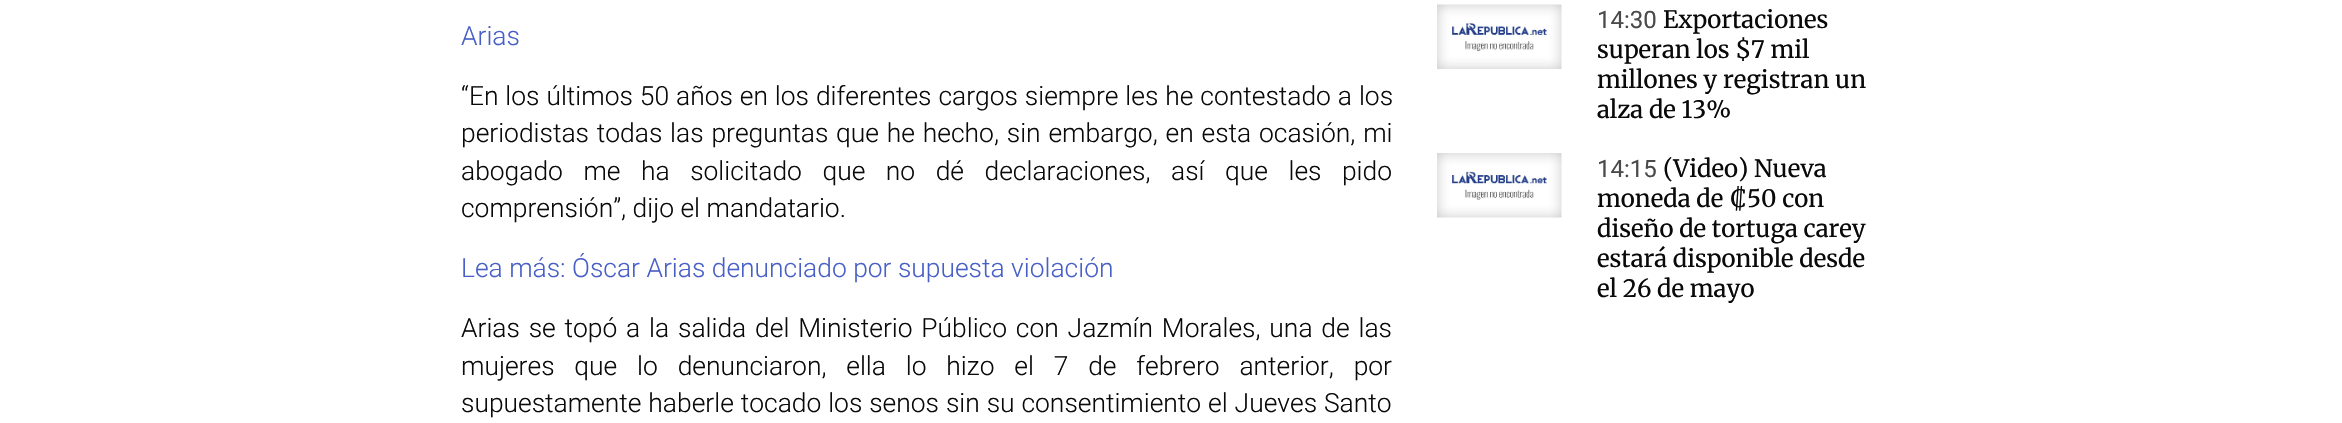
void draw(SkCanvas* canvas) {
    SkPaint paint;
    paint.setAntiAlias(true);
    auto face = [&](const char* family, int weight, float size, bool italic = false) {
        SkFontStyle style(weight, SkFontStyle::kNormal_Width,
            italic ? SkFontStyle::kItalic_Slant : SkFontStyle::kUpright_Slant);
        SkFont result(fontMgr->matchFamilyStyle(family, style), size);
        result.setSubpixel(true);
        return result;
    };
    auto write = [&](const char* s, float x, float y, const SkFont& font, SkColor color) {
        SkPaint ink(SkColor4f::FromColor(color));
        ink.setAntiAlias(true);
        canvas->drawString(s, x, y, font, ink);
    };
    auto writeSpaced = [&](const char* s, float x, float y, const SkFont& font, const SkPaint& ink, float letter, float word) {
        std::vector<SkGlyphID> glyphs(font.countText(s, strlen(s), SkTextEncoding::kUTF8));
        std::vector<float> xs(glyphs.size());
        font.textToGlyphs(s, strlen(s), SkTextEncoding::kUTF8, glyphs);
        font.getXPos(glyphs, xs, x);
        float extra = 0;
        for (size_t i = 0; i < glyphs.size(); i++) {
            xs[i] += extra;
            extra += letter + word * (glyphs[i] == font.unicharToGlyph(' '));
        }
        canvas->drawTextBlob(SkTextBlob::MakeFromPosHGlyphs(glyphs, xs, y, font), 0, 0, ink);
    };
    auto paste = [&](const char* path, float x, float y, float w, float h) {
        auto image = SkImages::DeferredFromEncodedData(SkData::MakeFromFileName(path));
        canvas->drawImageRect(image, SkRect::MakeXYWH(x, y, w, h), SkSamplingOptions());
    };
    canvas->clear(SK_ColorWHITE);
    auto kFont1 = face("Roboto", 300, 26.4f);
    write("Arias", 461, 45, kFont1, SkColorSetRGB(72, 95, 199));
    paint.setColor(SkColorSetRGB(10, 10, 10));
    writeSpaced("“En los últimos 50 años en los diferentes cargos siempre les he contestado a los", 461, 105, kFont1, paint, 0, 0.5f);
    writeSpaced("periodistas todas las preguntas que he hecho, sin embargo, en esta ocasión, mi", 461, 142, kFont1, paint, 0, 1.4f);
    writeSpaced("abogado me ha solicitado que no dé declaraciones, así que les pido", 461, 180, kFont1, paint, 0, 14.1f);
    write("comprensión”, dijo el mandatario.", 461, 217, kFont1, SkColorSetRGB(10, 10, 10));
    write("Lea más: Óscar Arias denunciado por supuesta violación", 461, 277, kFont1, SkColorSetRGB(72, 95, 199));
    writeSpaced("Arias se topó a la salida del Ministerio Público con Jazmín Morales, una de las", 461, 337, kFont1, paint, 0, 2.4f);
    writeSpaced("mujeres que lo denunciaron, ella lo hizo el 7 de febrero anterior, por", 461, 375, kFont1, paint, 0, 13.4f);
    writeSpaced("supuestamente haberle tocado los senos sin su consentimiento el Jueves Santo", 461, 412, kFont1, paint, 0, 0.5f);
    paste("pic1.png", 1437, 4, 125, 65);
    auto kFont2 = face("Roboto", 400, 24);
    write("14:30", 1597, 28, kFont2, SkColorSetRGB(74, 74, 74));
    auto kFont3 = face("Merriweather", 300, 24);
    write("Exportaciones", 1663, 28, kFont3, SkColorSetRGB(10, 10, 10));
    write("superan los $7 mil", 1597, 58, kFont3, SkColorSetRGB(10, 10, 10));
    write("millones y registran un", 1597, 88, kFont3, SkColorSetRGB(10, 10, 10));
    write("alza de 13%", 1597, 118, kFont3, SkColorSetRGB(10, 10, 10));
    paste("pic2.png", 1437, 153, 125, 65);
    write("14:15", 1597, 177, kFont2, SkColorSetRGB(74, 74, 74));
    write("(Video) Nueva", 1663, 177, kFont3, SkColorSetRGB(10, 10, 10));
    write("moneda de ₡50 con", 1597, 207, kFont3, SkColorSetRGB(10, 10, 10));
    write("diseño de tortuga carey", 1597, 237, kFont3, SkColorSetRGB(10, 10, 10));
    write("estará disponible desde", 1597, 267, kFont3, SkColorSetRGB(10, 10, 10));
    write("el 26 de mayo", 1597, 297, kFont3, SkColorSetRGB(10, 10, 10));
}
